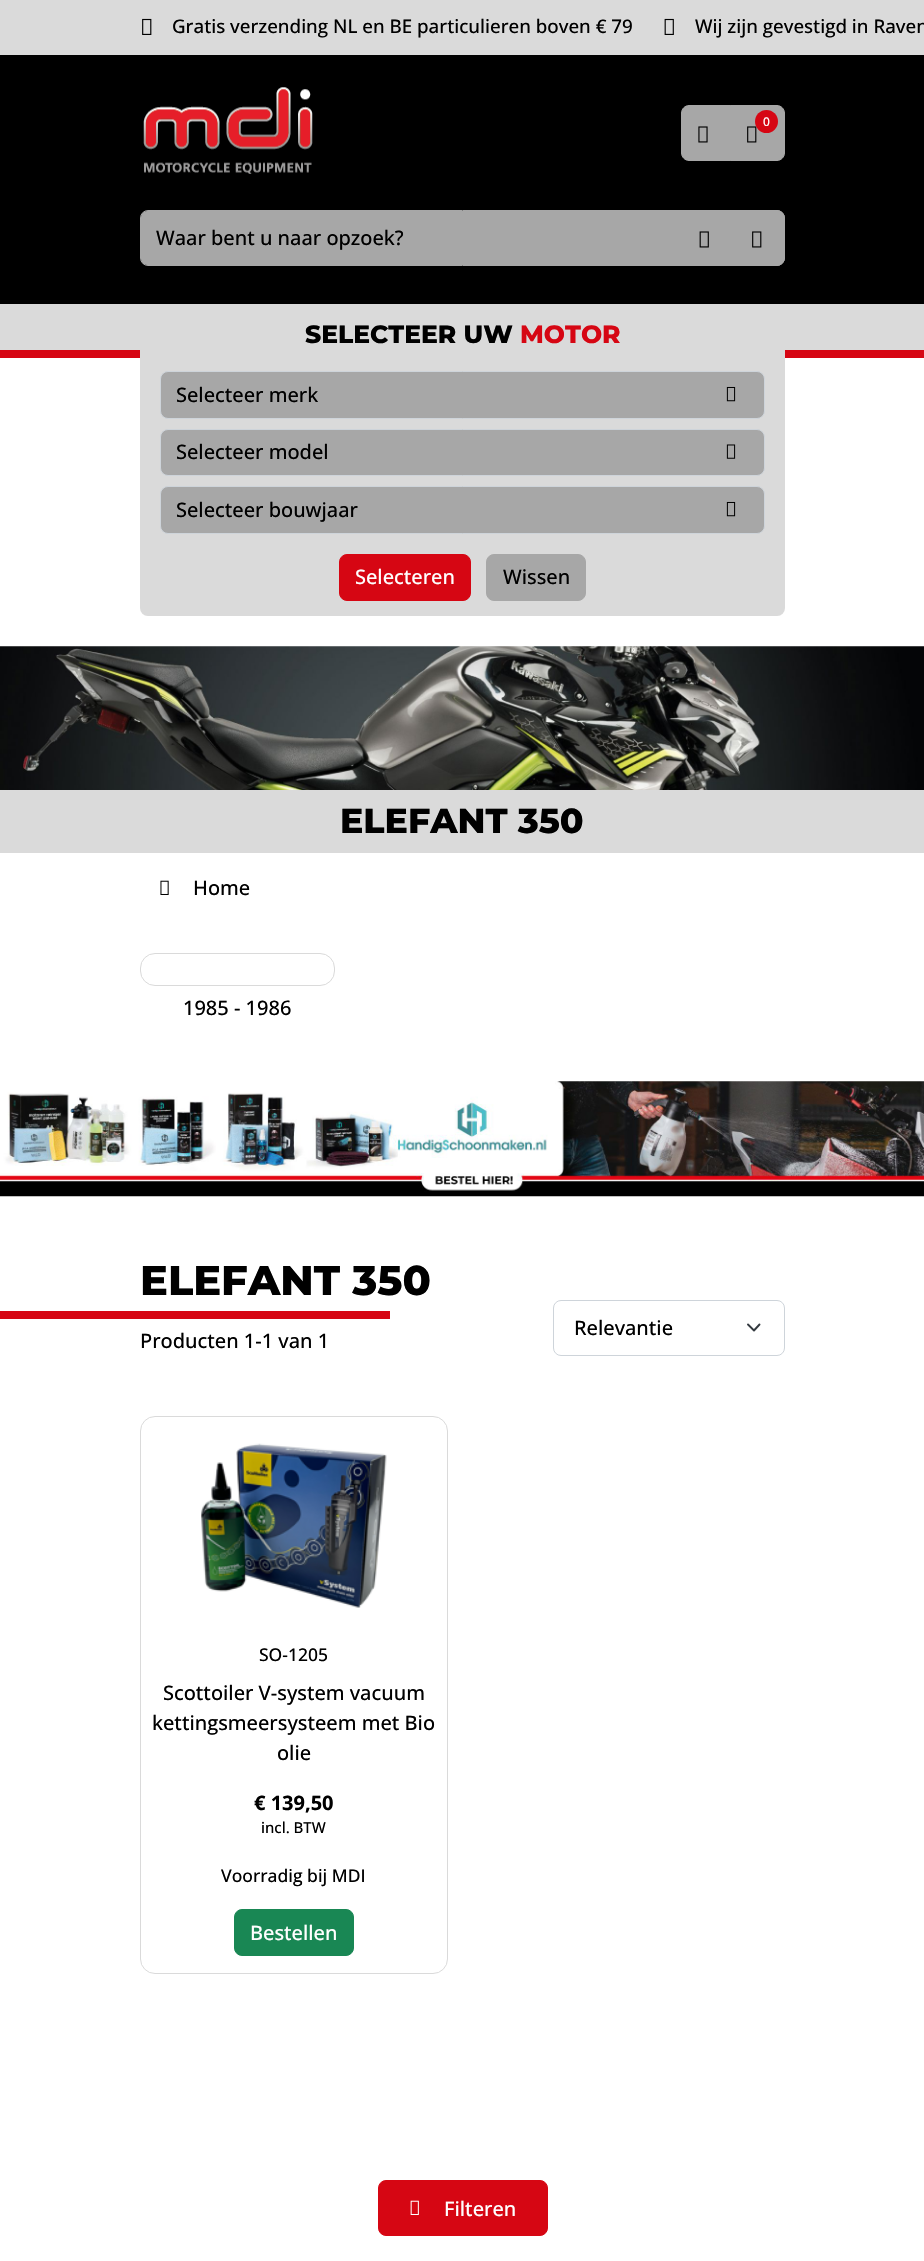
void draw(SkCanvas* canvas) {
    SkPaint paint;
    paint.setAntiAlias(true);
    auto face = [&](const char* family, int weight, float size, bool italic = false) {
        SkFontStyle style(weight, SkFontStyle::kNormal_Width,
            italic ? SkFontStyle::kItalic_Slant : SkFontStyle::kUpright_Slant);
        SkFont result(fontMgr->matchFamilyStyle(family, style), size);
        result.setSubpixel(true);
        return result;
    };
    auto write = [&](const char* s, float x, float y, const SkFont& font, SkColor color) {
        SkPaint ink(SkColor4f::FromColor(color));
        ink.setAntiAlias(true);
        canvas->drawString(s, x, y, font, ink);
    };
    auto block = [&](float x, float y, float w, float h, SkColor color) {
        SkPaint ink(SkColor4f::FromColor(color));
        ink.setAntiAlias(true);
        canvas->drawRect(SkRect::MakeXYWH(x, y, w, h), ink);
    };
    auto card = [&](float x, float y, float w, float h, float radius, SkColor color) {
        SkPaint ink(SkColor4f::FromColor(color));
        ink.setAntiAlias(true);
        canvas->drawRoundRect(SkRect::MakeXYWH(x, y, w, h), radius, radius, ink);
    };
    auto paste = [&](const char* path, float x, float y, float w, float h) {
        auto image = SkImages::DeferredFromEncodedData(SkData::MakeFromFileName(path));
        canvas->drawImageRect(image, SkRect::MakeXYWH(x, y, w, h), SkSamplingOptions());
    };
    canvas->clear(SK_ColorWHITE);
    block(0, 0, 924, 55, SkColorSetRGB(218, 218, 218));
    paste("pic1.png", 142, 18, 10, 17);
    auto kFont1 = face("Open Sans", 500, 18.75f);
    write("Gratis verzending NL en BE particulieren boven € 79", 172, 33, kFont1, SK_ColorBLACK);
    paste("pic2.png", 664, 18, 10, 17);
    write("Wij zijn gevestigd in Raven", 695, 33, kFont1, SK_ColorBLACK);
    block(0, 55, 924, 249, SK_ColorBLACK);
    paste("pic3.png", 143, 87, 170, 87);
    paint.setColor(SkColorSetRGB(167, 167, 167));
    canvas->drawPath(SkPathBuilder().moveTo(689, 105.5f).lineTo(730.5f, 105.5f).lineTo(730.5f, 160.5f).lineTo(689, 160.5f).cubicTo(685, 160.5f, 681.5f, 157, 681.5f, 153).lineTo(681.5f, 113).cubicTo(681.5f, 109, 685, 105.5f, 689, 105.5f).close().detach(), paint);
    paint.setStyle(SkPaint::kStroke_Style);
    paint.setStrokeWidth(1);
    canvas->drawPath(SkPathBuilder().moveTo(689, 105.5f).lineTo(730.5f, 105.5f).lineTo(730.5f, 160.5f).lineTo(689, 160.5f).cubicTo(685, 160.5f, 681.5f, 157, 681.5f, 153).lineTo(681.5f, 113).cubicTo(681.5f, 109, 685, 105.5f, 689, 105.5f).close().detach(), paint);
    paste("pic4.png", 698, 126, 10, 17);
    paint.setStyle(SkPaint::kFill_Style);
    canvas->drawPath(SkPathBuilder().moveTo(730.5f, 105.5f).lineTo(777, 105.5f).cubicTo(781, 105.5f, 784.5f, 109, 784.5f, 113).lineTo(784.5f, 153).cubicTo(784.5f, 157, 781, 160.5f, 777, 160.5f).lineTo(730.5f, 160.5f).close().detach(), paint);
    paint.setStyle(SkPaint::kStroke_Style);
    canvas->drawPath(SkPathBuilder().moveTo(730.5f, 105.5f).lineTo(777, 105.5f).cubicTo(781, 105.5f, 784.5f, 109, 784.5f, 113).lineTo(784.5f, 153).cubicTo(784.5f, 157, 781, 160.5f, 777, 160.5f).lineTo(730.5f, 160.5f).close().detach(), paint);
    paste("pic5.png", 747, 126, 10, 17);
    paint.setStyle(SkPaint::kFill_Style);
    paint.setColor(SkColorSetRGB(214, 6, 19));
    canvas->drawCircle(766.5f, 121.5f, 11.5f, paint);
    auto kFont2 = face("Open Sans", 500, 12);
    write("0", 763, 126, kFont2, SK_ColorWHITE);
    card(141, 211, 643, 54, 6, SkColorSetRGB(167, 167, 167));
    paint.setStyle(SkPaint::kStroke_Style);
    paint.setColor(SkColorSetRGB(167, 167, 167));
    canvas->drawRoundRect(SkRect::MakeXYWH(140.5f, 210.5f, 644, 55), 7.5f, 7.5f, paint);
    auto kFont3 = face("Open Sans", 500, 20);
    write("Waar bent u naar opzoek?", 156, 245, kFont3, SK_ColorBLACK);
    paste("pic6.png", 699, 231, 10, 17);
    paint.setStyle(SkPaint::kFill_Style);
    canvas->drawRoundRect(SkRect::MakeXYWH(735.5f, 210.5f, 49, 55), 7.5f, 7.5f, paint);
    paint.setStyle(SkPaint::kStroke_Style);
    canvas->drawRoundRect(SkRect::MakeXYWH(735.5f, 210.5f, 49, 55), 7.5f, 7.5f, paint);
    paste("pic5.png", 752, 231, 10, 17);
    block(0, 304, 924, 46, SkColorSetRGB(218, 218, 218));
    block(0, 350, 924, 8, SkColorSetRGB(214, 6, 19));
    card(140, 304, 645, 312, 8, SkColorSetRGB(218, 218, 218));
    auto kFont4 = face("Montserrat", 100, 25);
    write("SELECTEER UW", 305, 343, kFont4, SK_ColorBLACK);
    write("MOTOR", 520, 343, kFont4, SkColorSetRGB(214, 6, 19));
    paint.setStyle(SkPaint::kFill_Style);
    canvas->drawRoundRect(SkRect::MakeXYWH(160.5f, 371.5f, 604, 47), 7.5f, 7.5f, paint);
    paint.setStyle(SkPaint::kStroke_Style);
    paint.setColor(SkColorSetRGB(206, 212, 218));
    canvas->drawRoundRect(SkRect::MakeXYWH(160.5f, 371.5f, 604, 47), 7.5f, 7.5f, paint);
    write("Selecteer merk", 176, 402, kFont3, SK_ColorBLACK);
    paste("pic7.png", 726, 386, 10, 16);
    paint.setStyle(SkPaint::kFill_Style);
    paint.setColor(SkColorSetRGB(167, 167, 167));
    canvas->drawRoundRect(SkRect::MakeXYWH(160.5f, 429.5f, 604, 46), 7.5f, 7.5f, paint);
    paint.setStyle(SkPaint::kStroke_Style);
    paint.setColor(SkColorSetRGB(206, 212, 218));
    canvas->drawRoundRect(SkRect::MakeXYWH(160.5f, 429.5f, 604, 46), 7.5f, 7.5f, paint);
    write("Selecteer model", 176, 459, kFont3, SK_ColorBLACK);
    paste("pic8.png", 726, 444, 10, 15);
    paint.setStyle(SkPaint::kFill_Style);
    paint.setColor(SkColorSetRGB(167, 167, 167));
    canvas->drawRoundRect(SkRect::MakeXYWH(160.5f, 486.5f, 604, 47), 7.5f, 7.5f, paint);
    paint.setStyle(SkPaint::kStroke_Style);
    paint.setColor(SkColorSetRGB(206, 212, 218));
    canvas->drawRoundRect(SkRect::MakeXYWH(160.5f, 486.5f, 604, 47), 7.5f, 7.5f, paint);
    write("Selecteer bouwjaar", 176, 517, kFont3, SK_ColorBLACK);
    paste("pic7.png", 726, 501, 10, 16);
    paint.setStyle(SkPaint::kFill_Style);
    paint.setColor(SkColorSetRGB(214, 6, 19));
    canvas->drawRoundRect(SkRect::MakeXYWH(339.5f, 554.5f, 131, 46), 7.5f, 7.5f, paint);
    paint.setStyle(SkPaint::kStroke_Style);
    canvas->drawRoundRect(SkRect::MakeXYWH(339.5f, 554.5f, 131, 46), 7.5f, 7.5f, paint);
    write("Selecteren", 355, 584, kFont3, SK_ColorWHITE);
    paint.setStyle(SkPaint::kFill_Style);
    paint.setColor(SkColorSetRGB(167, 167, 167));
    canvas->drawRoundRect(SkRect::MakeXYWH(486.5f, 554.5f, 99, 46), 7.5f, 7.5f, paint);
    paint.setStyle(SkPaint::kStroke_Style);
    canvas->drawRoundRect(SkRect::MakeXYWH(486.5f, 554.5f, 99, 46), 7.5f, 7.5f, paint);
    write("Wissen", 503, 584, kFont3, SK_ColorBLACK);
    paste("pic9.png", 0, 646, 924, 144);
    block(0, 790, 924, 63, SkColorSetRGB(218, 218, 218));
    auto kFont5 = face("Montserrat", 100, 34.75f);
    write("ELEFANT 350", 340, 833, kFont5, SK_ColorBLACK);
    paste("pic10.png", 160, 880, 9, 15);
    write("Home", 193, 895, kFont3, SK_ColorBLACK);
    paint.setColor(SkColorSetRGB(218, 218, 218));
    canvas->drawRoundRect(SkRect::MakeXYWH(140.5f, 953.5f, 194, 32), 14.5f, 14.5f, paint);
    write("1985 - 1986", 183, 1015, kFont3, SK_ColorBLACK);
    paste("pic11.png", 0, 1081, 924, 116);
    auto kFont6 = face("Montserrat", 100, 41.5f);
    write("ELEFANT 350", 140, 1295, kFont6, SK_ColorBLACK);
    block(0, 1311, 390, 8, SkColorSetRGB(214, 6, 19));
    write("Producten 1-1 van 1", 140, 1348, kFont3, SK_ColorBLACK);
    paint.setStrokeWidth(1.9f);
    paint.setStrokeCap(SkPaint::kRound_Cap);
    paint.setStrokeJoin(SkPaint::kRound_Join);
    paint.setColor(SkColorSetRGB(52, 58, 64));
    canvas->drawPath(SkPathBuilder().moveTo(748, 1324.5f).lineTo(754, 1330.5f).lineTo(759.5f, 1324.5f).detach(), paint);
    paint.setStrokeWidth(1);
    paint.setStrokeCap(SkPaint::kButt_Cap);
    paint.setStrokeJoin(SkPaint::kMiter_Join);
    paint.setColor(SkColorSetRGB(206, 212, 218));
    canvas->drawRoundRect(SkRect::MakeXYWH(553.5f, 1300.5f, 231, 55), 7.5f, 7.5f, paint);
    write("Relevantie", 574, 1335, kFont3, SK_ColorBLACK);
    paint.setColor(SkColorSetRGB(218, 218, 218));
    canvas->drawRoundRect(SkRect::MakeXYWH(140.5f, 1416.5f, 307, 557), 14.5f, 14.5f, paint);
    paste("pic12.png", 201, 1443, 186, 165);
    auto kFont7 = face("Open Sans", 500, 17.5f);
    write("SO-1205", 259, 1661, kFont7, SK_ColorBLACK);
    write("Scottoiler V-system vacuum", 163, 1700, kFont3, SK_ColorBLACK);
    write("kettingsmeersysteem met Bio", 152, 1730, kFont3, SK_ColorBLACK);
    write("olie", 277, 1760, kFont3, SK_ColorBLACK);
    auto kFont8 = face("Open Sans", 700, 20);
    write("€ 139,50", 254, 1810, kFont8, SK_ColorBLACK);
    auto kFont9 = face("Open Sans", 500, 15);
    write("incl. BTW", 261, 1833, kFont9, SK_ColorBLACK);
    write("Voorradig bij MDI", 221, 1882, kFont7, SK_ColorBLACK);
    paint.setStyle(SkPaint::kFill_Style);
    paint.setColor(SkColorSetRGB(25, 135, 84));
    canvas->drawRoundRect(SkRect::MakeXYWH(234.5f, 1909.5f, 119, 46), 7.5f, 7.5f, paint);
    paint.setStyle(SkPaint::kStroke_Style);
    canvas->drawRoundRect(SkRect::MakeXYWH(234.5f, 1909.5f, 119, 46), 7.5f, 7.5f, paint);
    write("Bestellen", 250, 1940, kFont3, SK_ColorWHITE);
    paint.setStyle(SkPaint::kFill_Style);
    paint.setColor(SkColorSetRGB(214, 6, 19));
    canvas->drawRoundRect(SkRect::MakeXYWH(378.5f, 2180.5f, 169, 55), 7.5f, 7.5f, paint);
    paint.setStyle(SkPaint::kStroke_Style);
    canvas->drawRoundRect(SkRect::MakeXYWH(378.5f, 2180.5f, 169, 55), 7.5f, 7.5f, paint);
    paste("pic13.png", 410, 2200, 9, 15);
    write("Filteren", 444, 2216, kFont3, SK_ColorWHITE);
}
